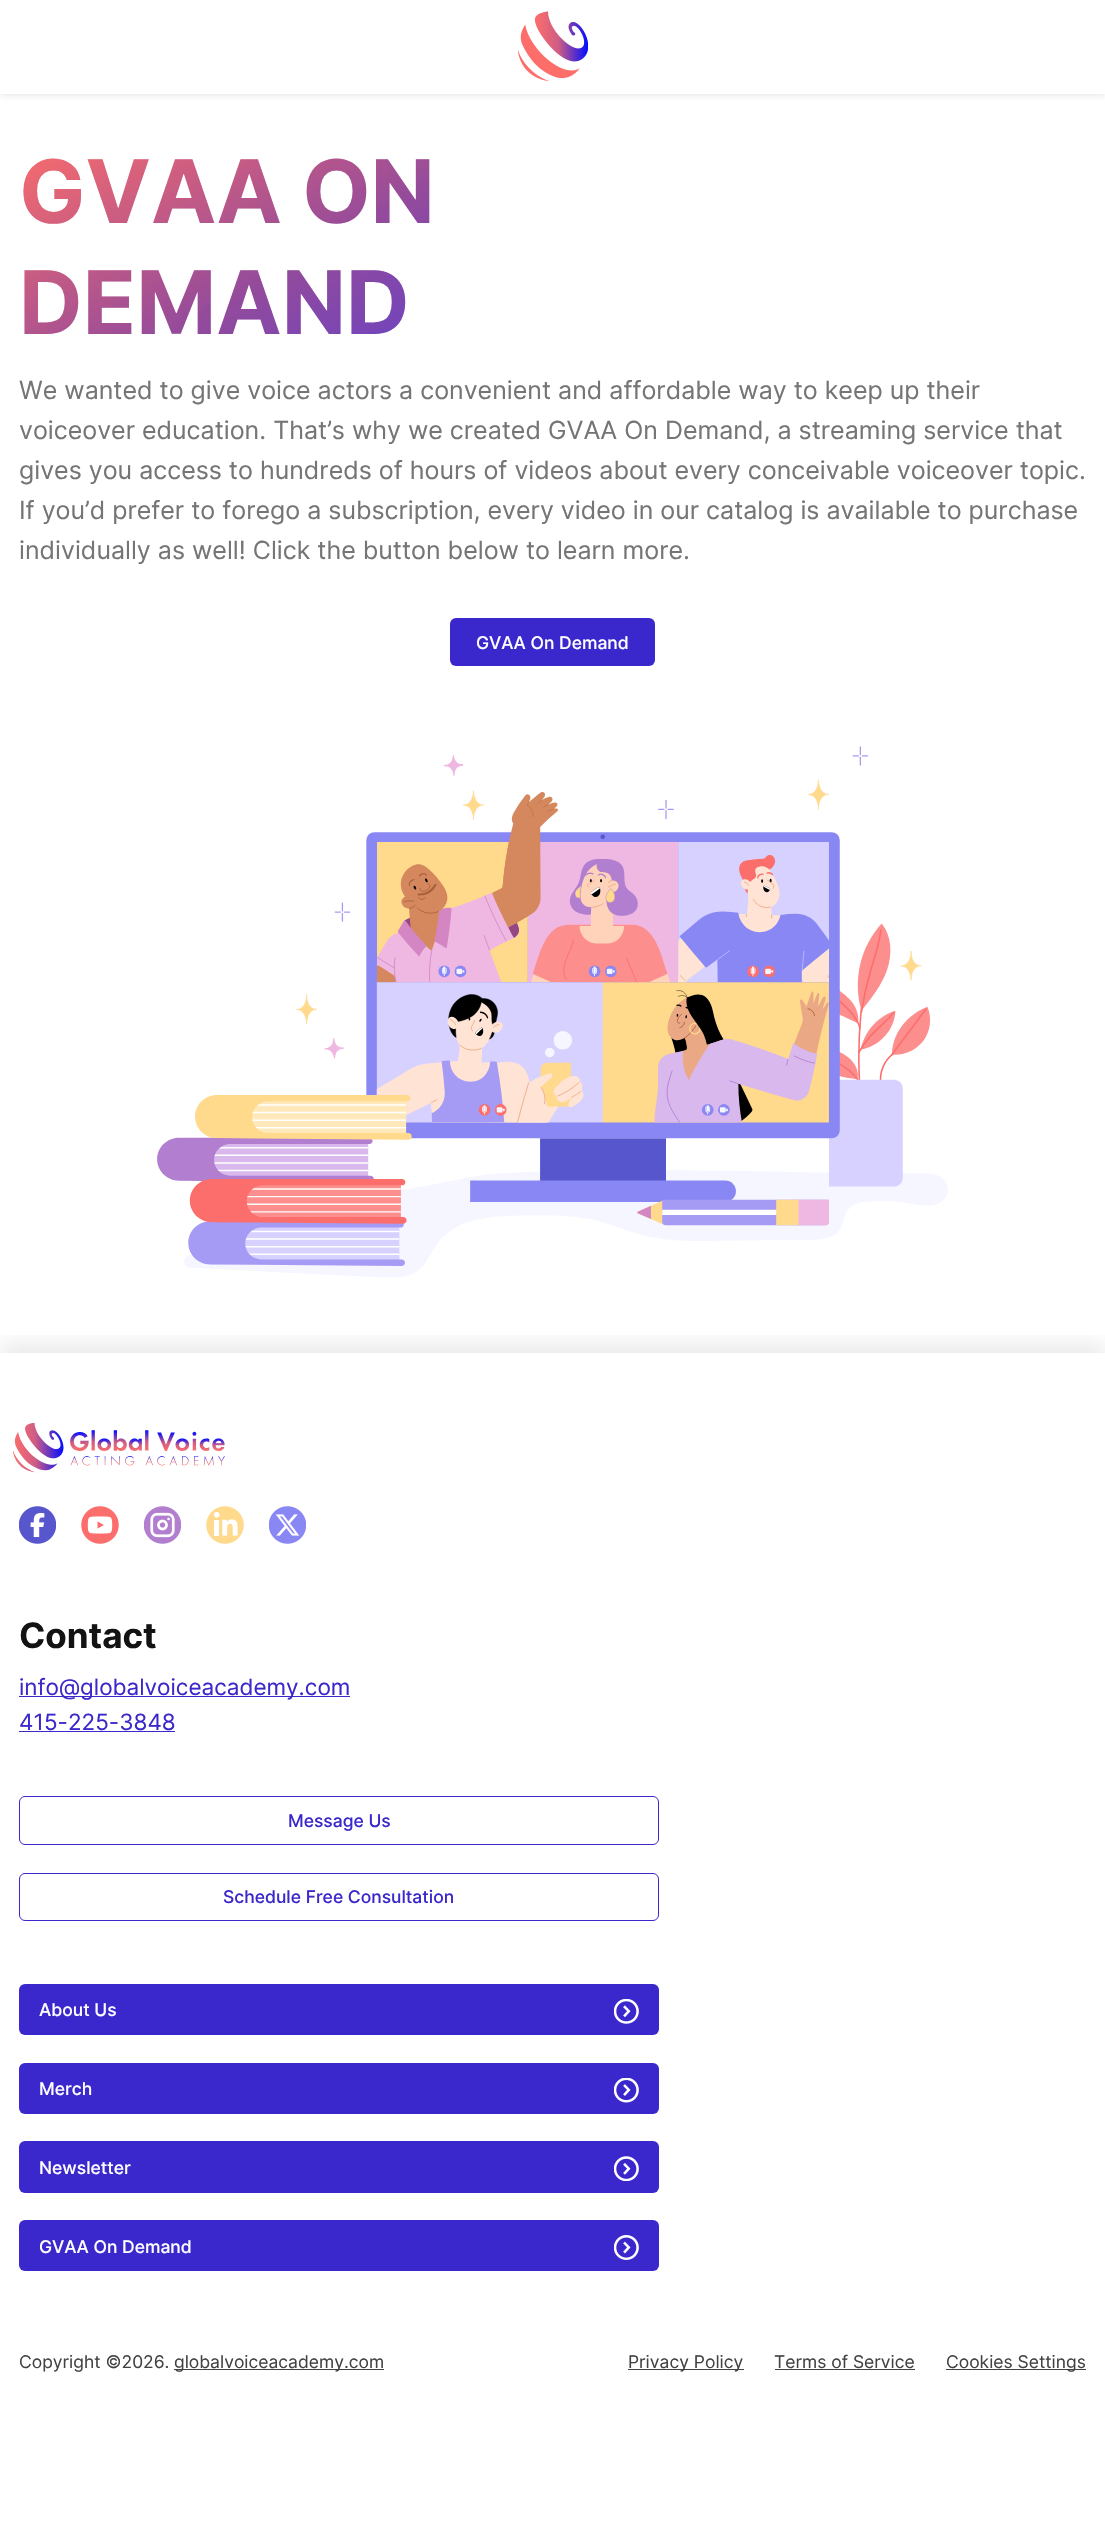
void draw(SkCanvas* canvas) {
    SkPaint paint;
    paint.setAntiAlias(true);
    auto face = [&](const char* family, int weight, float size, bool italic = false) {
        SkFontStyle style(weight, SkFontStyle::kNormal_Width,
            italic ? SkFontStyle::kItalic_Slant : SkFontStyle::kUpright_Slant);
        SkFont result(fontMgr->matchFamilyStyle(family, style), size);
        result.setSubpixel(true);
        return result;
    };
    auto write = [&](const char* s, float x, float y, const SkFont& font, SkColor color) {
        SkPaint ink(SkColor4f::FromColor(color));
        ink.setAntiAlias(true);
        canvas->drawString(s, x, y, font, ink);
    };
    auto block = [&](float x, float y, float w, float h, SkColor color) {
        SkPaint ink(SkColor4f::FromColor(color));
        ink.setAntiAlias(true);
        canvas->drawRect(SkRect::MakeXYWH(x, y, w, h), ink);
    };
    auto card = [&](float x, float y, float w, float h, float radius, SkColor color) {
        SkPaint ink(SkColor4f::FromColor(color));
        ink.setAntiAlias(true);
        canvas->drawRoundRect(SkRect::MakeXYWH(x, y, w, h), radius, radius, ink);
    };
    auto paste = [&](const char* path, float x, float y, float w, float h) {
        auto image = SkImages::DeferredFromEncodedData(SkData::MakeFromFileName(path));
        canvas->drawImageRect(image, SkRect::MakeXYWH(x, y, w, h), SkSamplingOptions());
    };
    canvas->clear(SK_ColorWHITE);
    paint.setColor(SkColorSetARGB(26, 48, 49, 51));
    paint.setMaskFilter(SkMaskFilter::MakeBlur(kNormal_SkBlurStyle, 2.5f));
    canvas->drawRect(SkRect::MakeXYWH(0, 3, 1105, 93), paint);
    paint.setMaskFilter(nullptr);
    block(0, 0, 1105, 94, SK_ColorWHITE);
    paste("pic1.png", 518, 11, 70, 70);
    auto kFont1 = face("Inter", 700, 87.5f);
    {
        const SkColor colors[] = {SkColorSetRGB(253, 110, 106), SkColorSetRGB(146, 74, 156), SkColorSetRGB(46, 57, 255)};
        const float stops[] = {0, 0.42f, 1};
        const SkPoint ends[] = {{127, 73}, {429, 597}};
        paint.setShader(SkGradientShader::MakeLinear(ends, colors, stops, 3, SkTileMode::kClamp));
        paint.setAlpha(255);
    }
    canvas->drawString("GVAA ON", 19, 223, kFont1, paint);
    canvas->drawString("DEMAND", 19, 334, kFont1, paint);
    auto kFont2 = face("Inter", 400, 25);
    write("We wanted to give voice actors a convenient and affordable way to keep up their", 19, 399, kFont2, SkColorSetRGB(117, 117, 117));
    write("voiceover education. That’s why we created GVAA On Demand, a streaming service that", 19, 439, kFont2, SkColorSetRGB(117, 117, 117));
    write("gives you access to hundreds of hours of videos about every conceivable voiceover topic.", 19, 479, kFont2, SkColorSetRGB(117, 117, 117));
    write("If you’d prefer to forego a subscription, every video in our catalog is available to purchase", 19, 519, kFont2, SkColorSetRGB(117, 117, 117));
    write("individually as well! Click the button below to learn more.", 19, 559, kFont2, SkColorSetRGB(117, 117, 117));
    card(450, 618, 205, 48, 6, SkColorSetRGB(59, 40, 204));
    auto kFont3 = face("Inter", 500, 17.5f);
    write("GVAA On Demand", 476, 649, kFont3, SK_ColorWHITE);
    paste("pic2.png", 157, 746, 791, 532);
    canvas->save();
    canvas->clipRect(SkRect::MakeXYWH(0, 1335, 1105, 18));
    paint.setShader(nullptr);
    paint.setColor(SkColorSetARGB(26, 48, 49, 51));
    paint.setMaskFilter(SkMaskFilter::MakeBlur(kNormal_SkBlurStyle, 10));
    canvas->drawRect(SkRect::MakeXYWH(0, 1343, 1105, 991), paint);
    paint.setMaskFilter(nullptr);
    canvas->restore();
    paste("pic3.png", 13, 1423, 212, 50);
    paste("pic4.png", 19, 1506, 37, 38);
    paste("pic5.png", 81, 1506, 38, 38);
    paste("pic6.png", 144, 1506, 37, 38);
    paste("pic7.png", 206, 1506, 38, 38);
    paste("pic8.png", 269, 1506, 37, 38);
    auto kFont4 = face("Inter", 700, 35);
    write("Contact", 19, 1648, kFont4, SkColorSetRGB(19, 19, 19));
    block(19, 1696, 331, 1, SkColorSetRGB(59, 40, 203));
    auto kFont5 = face("Inter", 400, 22.5f);
    write("info@globalvoiceacademy.com", 19, 1695, kFont5, SkColorSetRGB(59, 40, 203));
    write("415-225-3848", 19, 1730, kFont5, SkColorSetRGB(59, 40, 203));
    block(19, 1731, 156, 1, SkColorSetRGB(59, 40, 203));
    paint.setStyle(SkPaint::kStroke_Style);
    paint.setStrokeWidth(1);
    paint.setColor(SkColorSetRGB(59, 40, 204));
    canvas->drawRoundRect(SkRect::MakeXYWH(19.5f, 1796.5f, 639, 48), 5.5f, 5.5f, paint);
    write("Message Us", 288, 1827, kFont3, SkColorSetRGB(59, 40, 203));
    canvas->drawRoundRect(SkRect::MakeXYWH(19.5f, 1873.5f, 639, 47), 5.5f, 5.5f, paint);
    write("Schedule Free Consultation", 223, 1903, kFont3, SkColorSetRGB(59, 40, 203));
    card(19, 1984, 640, 51, 6, SkColorSetRGB(59, 40, 204));
    write("About Us", 39, 2016, kFont3, SK_ColorWHITE);
    paste("pic9.png", 614, 1999, 25, 25);
    card(19, 2063, 640, 51, 6, SkColorSetRGB(59, 40, 204));
    write("Merch", 39, 2095, kFont3, SK_ColorWHITE);
    paste("pic10.png", 614, 2078, 25, 25);
    card(19, 2141, 640, 52, 6, SkColorSetRGB(59, 40, 204));
    write("Newsletter", 39, 2174, kFont3, SK_ColorWHITE);
    paste("pic11.png", 614, 2156, 25, 25);
    card(19, 2220, 640, 51, 6, SkColorSetRGB(59, 40, 204));
    write("GVAA On Demand", 39, 2253, kFont3, SK_ColorWHITE);
    paste("pic12.png", 614, 2235, 25, 25);
    auto kFont6 = face("Inter", 400, 17.5f);
    write("Copyright ©2026.", 19, 2368, kFont6, SkColorSetRGB(66, 66, 66));
    block(174, 2369, 210, 1, SkColorSetRGB(66, 66, 66));
    write("globalvoiceacademy.com", 174, 2368, kFont6, SkColorSetRGB(66, 66, 66));
    block(628, 2369, 116, 1, SkColorSetRGB(66, 66, 66));
    write("Privacy Policy", 628, 2368, kFont6, SkColorSetRGB(66, 66, 66));
    write("Terms of Service", 774, 2368, kFont6, SkColorSetRGB(66, 66, 66));
    block(775, 2369, 140, 1, SkColorSetRGB(66, 66, 66));
    block(946, 2369, 140, 1, SkColorSetRGB(66, 66, 66));
    write("Cookies Settings", 946, 2368, kFont6, SkColorSetRGB(66, 66, 66));
}
